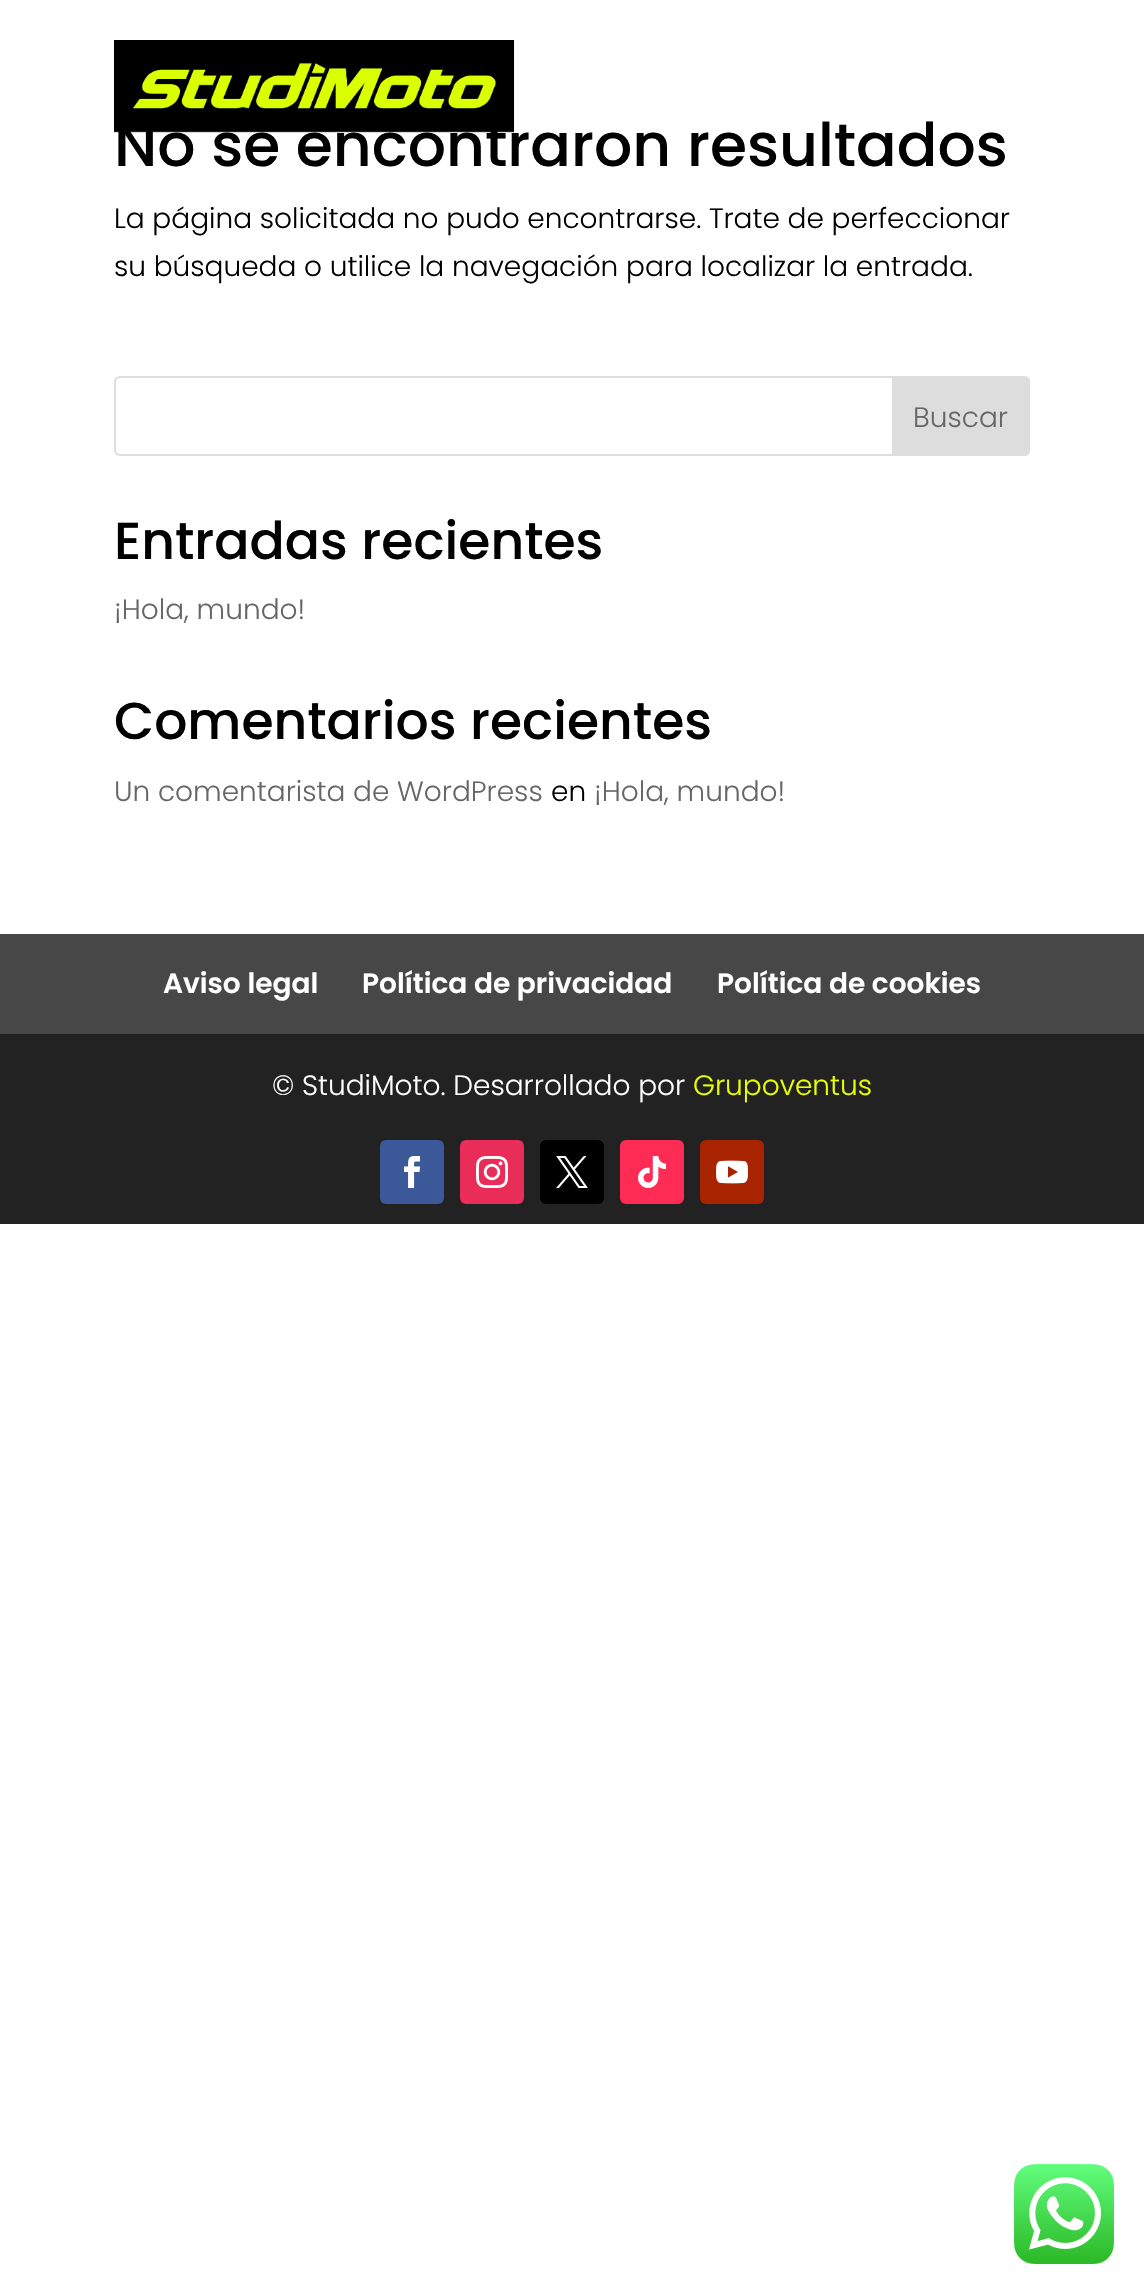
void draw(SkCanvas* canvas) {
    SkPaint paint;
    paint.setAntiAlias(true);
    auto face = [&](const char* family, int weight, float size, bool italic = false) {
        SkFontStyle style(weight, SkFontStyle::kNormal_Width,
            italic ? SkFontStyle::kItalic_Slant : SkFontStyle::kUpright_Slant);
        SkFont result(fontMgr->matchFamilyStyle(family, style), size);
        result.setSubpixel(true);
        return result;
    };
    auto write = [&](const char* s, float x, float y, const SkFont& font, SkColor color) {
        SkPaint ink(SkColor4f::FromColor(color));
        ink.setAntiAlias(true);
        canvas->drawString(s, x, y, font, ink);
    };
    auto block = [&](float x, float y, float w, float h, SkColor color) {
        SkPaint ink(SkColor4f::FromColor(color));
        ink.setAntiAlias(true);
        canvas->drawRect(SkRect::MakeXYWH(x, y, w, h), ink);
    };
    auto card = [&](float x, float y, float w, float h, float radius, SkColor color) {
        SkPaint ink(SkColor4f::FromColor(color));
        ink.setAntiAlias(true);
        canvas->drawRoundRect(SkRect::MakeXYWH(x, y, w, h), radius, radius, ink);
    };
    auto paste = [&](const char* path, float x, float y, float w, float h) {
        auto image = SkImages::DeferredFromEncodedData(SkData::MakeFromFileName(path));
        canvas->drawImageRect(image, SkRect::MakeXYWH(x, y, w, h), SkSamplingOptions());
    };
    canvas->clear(SK_ColorWHITE);
    auto kFont1 = face("Poppins", 500, 60);
    write("No se encontraron resultados", 114, 166, kFont1, SK_ColorBLACK);
    paste("pic1.png", 114, 40, 401, 93);
    auto kFont2 = face("Poppins", 300, 28);
    write("La página solicitada no pudo encontrarse. Trate de perfeccionar", 114, 228, kFont2, SK_ColorBLACK);
    write("su búsqueda o utilice la navegación para localizar la entrada.", 114, 276, kFont2, SK_ColorBLACK);
    paint.setStyle(SkPaint::kStroke_Style);
    paint.setStrokeWidth(2);
    paint.setColor(SkColorSetRGB(221, 221, 221));
    canvas->drawRoundRect(SkRect::MakeXYWH(115, 377, 914, 78), 5, 5, paint);
    paint.setStyle(SkPaint::kFill_Style);
    canvas->drawPath(SkPathBuilder().moveTo(893, 377).lineTo(1024, 377).cubicTo(1027, 377, 1029, 379, 1029, 382).lineTo(1029, 450).cubicTo(1029, 453, 1027, 455, 1024, 455).lineTo(893, 455).close().detach(), paint);
    paint.setStyle(SkPaint::kStroke_Style);
    canvas->drawPath(SkPathBuilder().moveTo(893, 377).lineTo(1024, 377).cubicTo(1027, 377, 1029, 379, 1029, 382).lineTo(1029, 450).cubicTo(1029, 453, 1027, 455, 1024, 455).lineTo(893, 455).close().detach(), paint);
    write("Buscar", 913, 427, kFont2, SkColorSetRGB(102, 102, 102));
    auto kFont3 = face("Poppins", 500, 52);
    write("Entradas recientes", 114, 559, kFont3, SK_ColorBLACK);
    write("¡Hola, mundo!", 114, 619, kFont2, SkColorSetRGB(102, 102, 102));
    write("Comentarios recientes", 114, 739, kFont3, SK_ColorBLACK);
    write("Un comentarista de WordPress", 114, 801, kFont2, SkColorSetRGB(102, 102, 102));
    write("en", 551, 801, kFont2, SK_ColorBLACK);
    write("¡Hola, mundo!", 594, 801, kFont2, SkColorSetRGB(102, 102, 102));
    block(0, 934, 1144, 100, SkColorSetRGB(71, 71, 71));
    auto kFont4 = face("Poppins", 600, 28);
    write("Aviso legal", 163, 993, kFont4, SK_ColorWHITE);
    write("Política de privacidad", 362, 993, kFont4, SK_ColorWHITE);
    write("Política de cookies", 717, 993, kFont4, SK_ColorWHITE);
    block(0, 1034, 1144, 190, SkColorSetRGB(34, 34, 34));
    write("© StudiMoto. Desarrollado por", 272, 1095, kFont2, SK_ColorWHITE);
    write("Grupoventus", 693, 1095, kFont2, SkColorSetRGB(234, 255, 0));
    card(380, 1140, 64, 64, 6, SkColorSetRGB(59, 89, 152));
    paste("pic2.png", 404, 1156, 17, 32);
    card(460, 1140, 64, 64, 6, SkColorSetRGB(234, 44, 89));
    paste("pic3.png", 476, 1156, 32, 32);
    card(540, 1140, 64, 64, 6, SK_ColorBLACK);
    paste("pic4.png", 556, 1156, 32, 32);
    card(620, 1140, 64, 64, 6, SkColorSetRGB(254, 44, 85));
    paste("pic5.png", 638, 1156, 28, 32);
    card(700, 1140, 64, 64, 6, SkColorSetRGB(168, 36, 0));
    paste("pic6.png", 716, 1160, 32, 24);
    paste("pic7.png", 1014, 2164, 100, 100);
}
